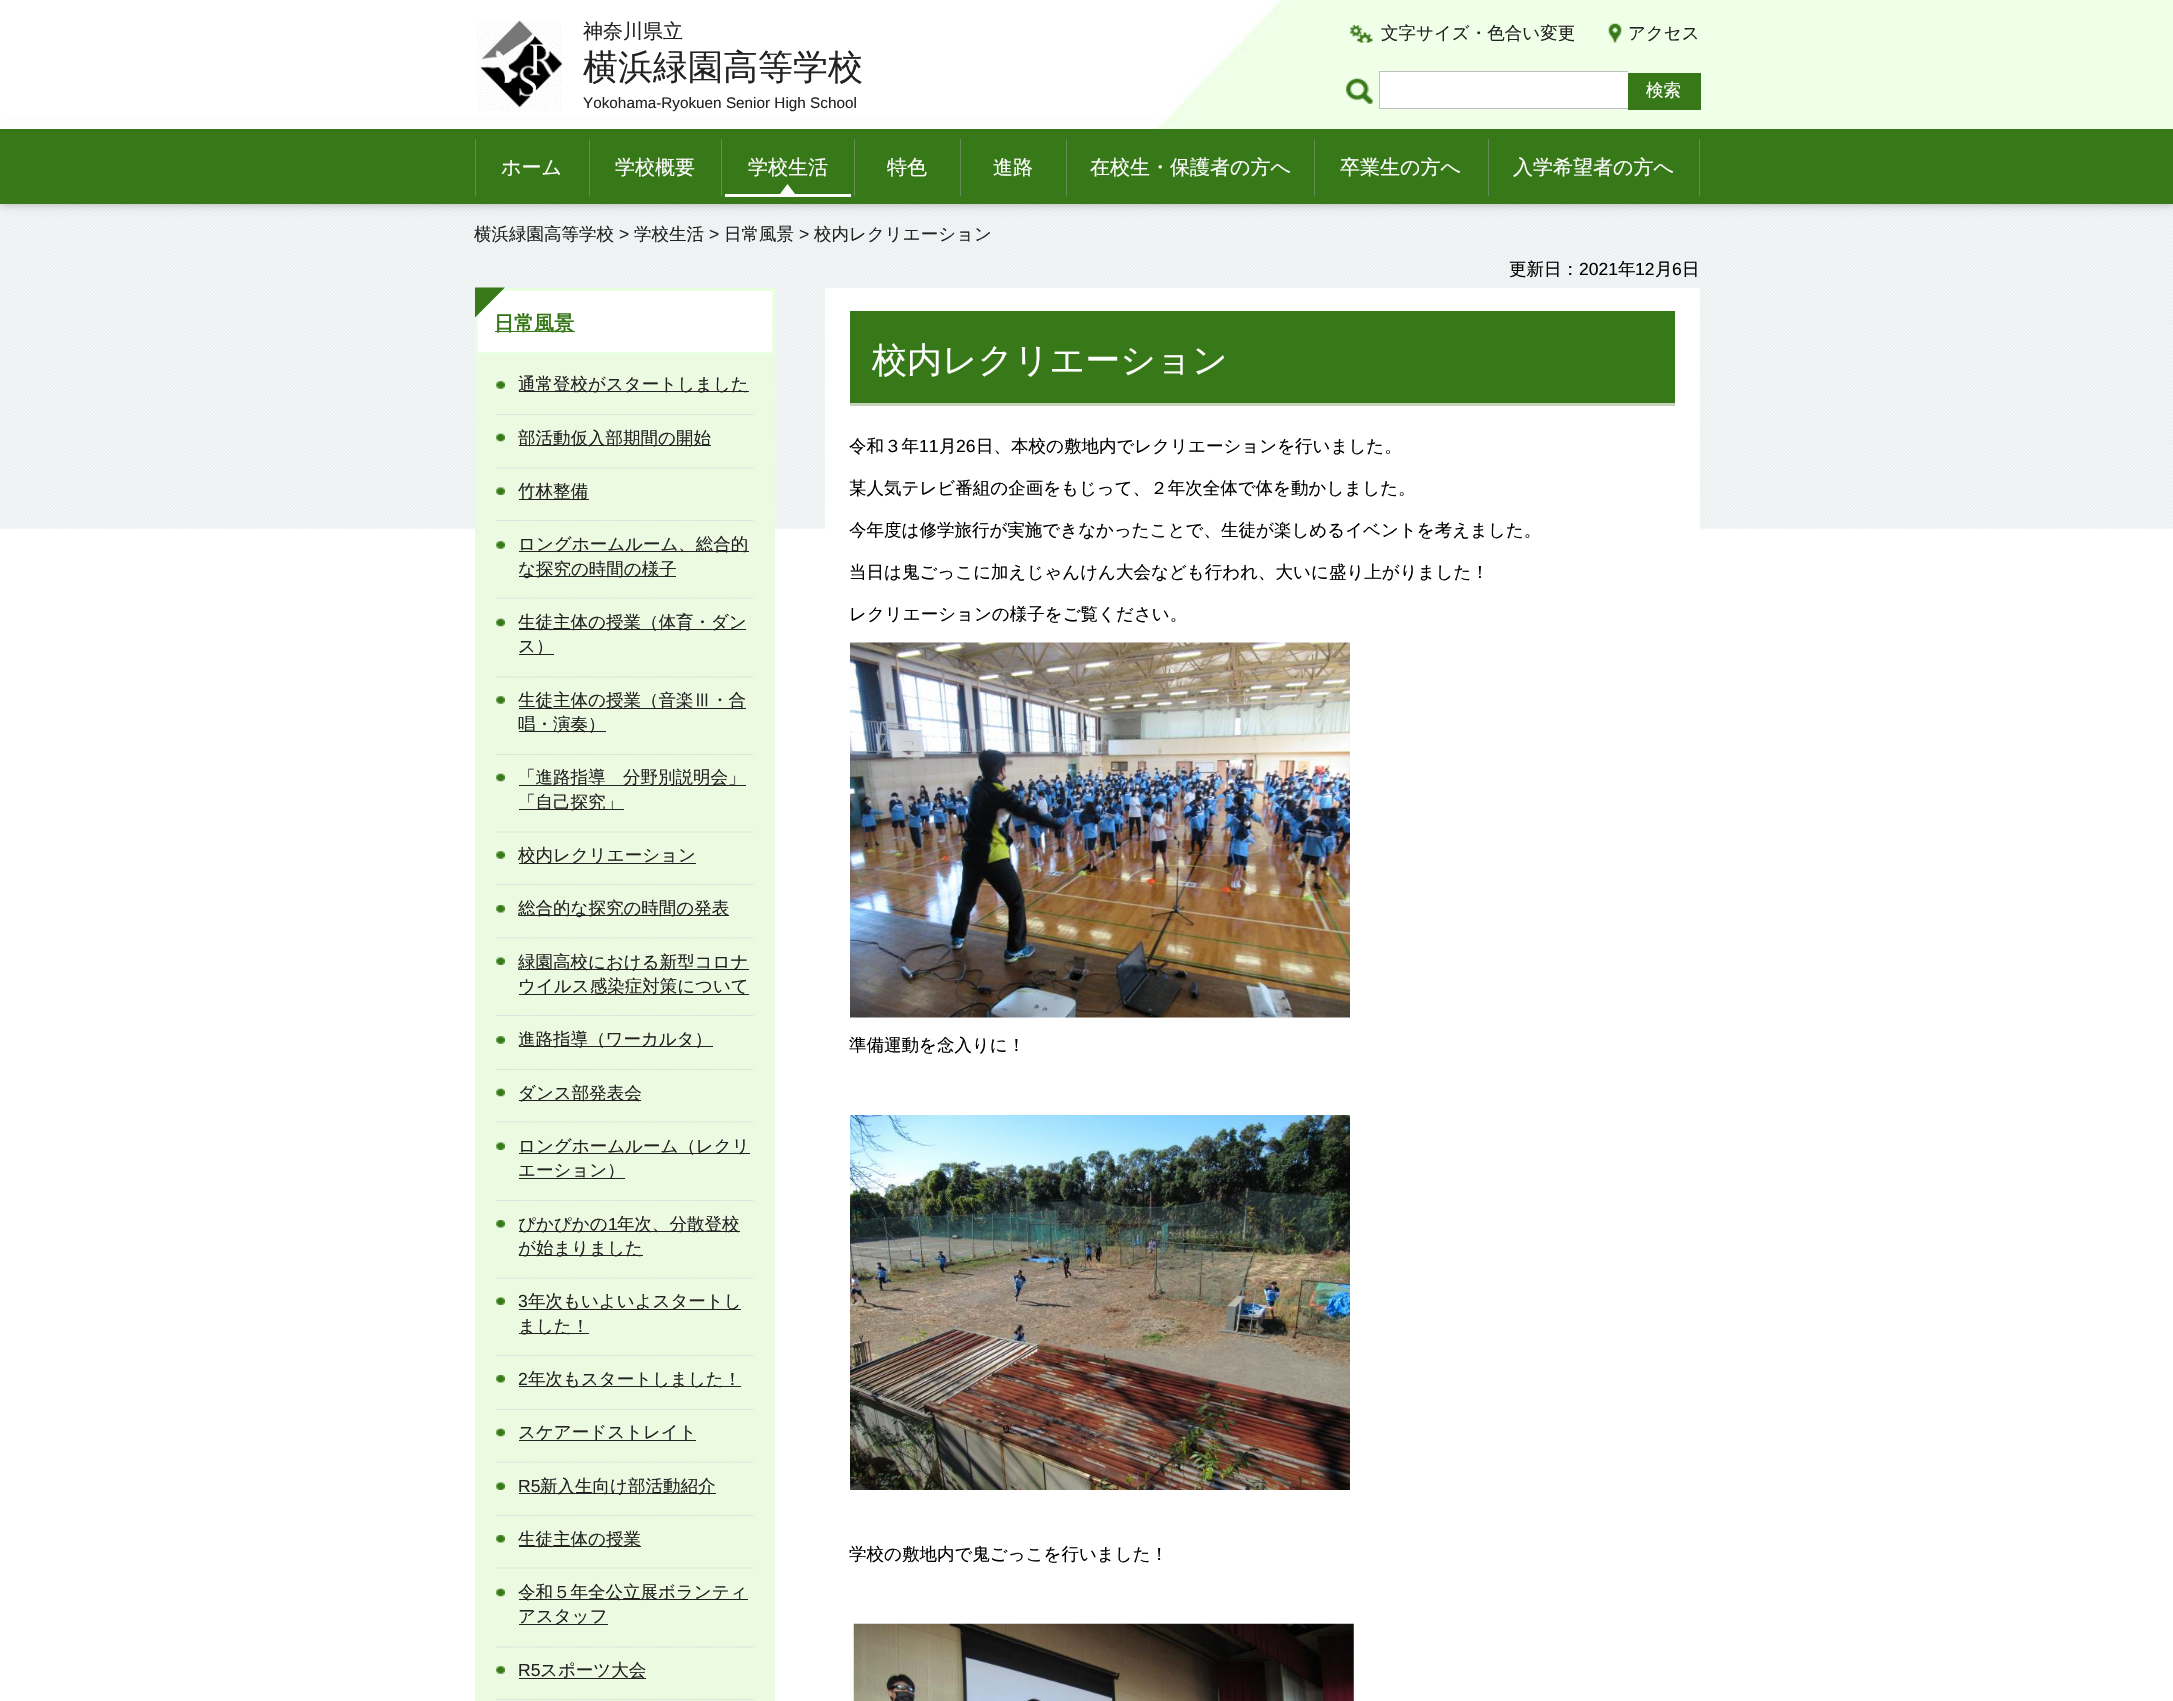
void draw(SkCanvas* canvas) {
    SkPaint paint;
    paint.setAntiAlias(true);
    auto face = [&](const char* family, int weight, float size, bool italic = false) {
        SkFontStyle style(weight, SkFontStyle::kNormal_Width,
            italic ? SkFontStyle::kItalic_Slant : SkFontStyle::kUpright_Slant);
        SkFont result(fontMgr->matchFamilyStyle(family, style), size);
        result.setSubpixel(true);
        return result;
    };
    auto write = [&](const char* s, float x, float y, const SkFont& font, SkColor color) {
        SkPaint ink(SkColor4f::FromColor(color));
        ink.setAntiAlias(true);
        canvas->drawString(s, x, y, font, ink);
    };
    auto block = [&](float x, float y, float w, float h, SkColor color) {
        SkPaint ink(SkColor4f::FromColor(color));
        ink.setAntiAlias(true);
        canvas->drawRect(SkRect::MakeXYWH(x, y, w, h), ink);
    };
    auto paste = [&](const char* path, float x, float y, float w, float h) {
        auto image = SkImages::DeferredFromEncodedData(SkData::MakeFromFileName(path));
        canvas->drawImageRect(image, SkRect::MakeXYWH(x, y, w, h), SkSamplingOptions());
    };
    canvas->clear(SK_ColorWHITE);
    paste("pic6.png", 0, 204, 2173, 325);
    paint.setColor(SkColorSetARGB(77, 0, 0, 0));
    paint.setMaskFilter(SkMaskFilter::MakeBlur(kNormal_SkBlurStyle, 4.5f));
    canvas->drawRect(SkRect::MakeXYWH(0, 129, 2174, 75), paint);
    paint.setMaskFilter(nullptr);
    block(0, 121, 1156, 8, SK_ColorWHITE);
    block(1156, 0, 1017, 129, SkColorSetRGB(240, 255, 232));
    paste("pic1.png", 1156, 0, 125, 129);
    paste("pic2.png", 477, 20, 86, 92);
    auto kFont1 = face("WenQuanYi Zen Hei", 500, 20);
    write("神奈川県立", 583, 38, kFont1, SkColorSetRGB(34, 34, 34));
    auto kFont2 = face("WenQuanYi Zen Hei", 500, 35);
    write("横浜緑園高等学校", 583, 79, kFont2, SkColorSetRGB(34, 34, 34));
    auto kFont3 = face("Liberation Sans", 400, 15.3f);
    write("Yokohama-Ryokuen Senior High School", 583, 108, kFont3, SkColorSetRGB(34, 34, 34));
    paste("pic3.png", 1350, 25, 23, 18);
    auto kFont4 = face("WenQuanYi Zen Hei", 500, 17.5f);
    write("文字サイズ・色合い変更", 1381, 39, kFont4, SkColorSetRGB(34, 34, 34));
    paste("pic4.png", 1608, 23, 14, 20);
    write("アクセス", 1628, 39, kFont4, SkColorSetRGB(34, 34, 34));
    paste("pic5.png", 1346, 78, 27, 26);
    block(1380, 72, 248, 36, SK_ColorWHITE);
    block(1379, 71, 249, 1, SkColorSetRGB(191, 191, 191));
    block(1379, 108, 249, 1, SkColorSetRGB(191, 191, 191));
    block(1379, 71, 1, 38, SkColorSetRGB(191, 191, 191));
    block(1628, 73, 73, 37, SkColorSetRGB(55, 120, 25));
    write("検索", 1646, 96, kFont4, SK_ColorWHITE);
    block(0, 129, 2173, 75, SkColorSetRGB(55, 120, 25));
    block(589, 139, 1, 57, SkColorSetRGB(102, 141, 85));
    block(475, 139, 1, 57, SkColorSetRGB(102, 141, 85));
    write("ホーム", 501, 174, kFont1, SK_ColorWHITE);
    block(721, 139, 1, 57, SkColorSetRGB(102, 141, 85));
    write("学校概要", 615, 174, kFont1, SK_ColorWHITE);
    block(854, 139, 1, 57, SkColorSetRGB(102, 141, 85));
    write("学校生活", 748, 174, kFont1, SK_ColorWHITE);
    paint.setColor(SK_ColorWHITE);
    canvas->drawPath(SkPathBuilder().moveTo(795, 194).lineTo(780, 194).lineTo(787.5f, 184).close().detach(), paint);
    block(725, 194, 126, 3, SK_ColorWHITE);
    block(960, 139, 1, 57, SkColorSetRGB(102, 141, 85));
    write("特色", 887, 174, kFont1, SK_ColorWHITE);
    block(1066, 139, 1, 57, SkColorSetRGB(102, 141, 85));
    write("進路", 993, 174, kFont1, SK_ColorWHITE);
    block(1314, 139, 1, 57, SkColorSetRGB(102, 141, 85));
    write("在校生・保護者の方へ", 1090, 174, kFont1, SK_ColorWHITE);
    block(1488, 139, 1, 57, SkColorSetRGB(102, 141, 85));
    write("卒業生の方へ", 1340, 174, kFont1, SK_ColorWHITE);
    block(1699, 139, 1, 57, SkColorSetRGB(102, 141, 85));
    write("入学希望者の方へ", 1513, 174, kFont1, SK_ColorWHITE);
    write("横浜緑園高等学校", 474, 240, kFont4, SkColorSetRGB(34, 34, 34));
    auto kFont5 = face("Liberation Sans", 400, 17.5f);
    write(">", 619, 240, kFont5, SkColorSetRGB(34, 34, 34));
    write("学校生活", 634, 240, kFont4, SkColorSetRGB(34, 34, 34));
    write(">", 709, 240, kFont5, SkColorSetRGB(34, 34, 34));
    write("日常風景", 724, 240, kFont4, SkColorSetRGB(34, 34, 34));
    write(">", 799, 240, kFont5, SkColorSetRGB(34, 34, 34));
    write("校内レクリエーション", 814, 240, kFont4, SkColorSetRGB(34, 34, 34));
    write("更新日：", 1509, 275, kFont4, SK_ColorBLACK);
    write("2021", 1579, 275, kFont5, SK_ColorBLACK);
    write("年", 1618, 275, kFont4, SK_ColorBLACK);
    write("12", 1635, 275, kFont5, SK_ColorBLACK);
    write("月", 1655, 275, kFont4, SK_ColorBLACK);
    write("6", 1672, 275, kFont5, SK_ColorBLACK);
    write("日", 1682, 275, kFont4, SK_ColorBLACK);
    canvas->drawRect(SkRect::MakeXYWH(476.5f, 289.5f, 297, 64), paint);
    paint.setStyle(SkPaint::kStroke_Style);
    paint.setStrokeWidth(3);
    paint.setColor(SkColorSetRGB(234, 255, 225));
    canvas->drawRect(SkRect::MakeXYWH(476.5f, 289.5f, 297, 64), paint);
    paint.setStyle(SkPaint::kFill_Style);
    paint.setColor(SkColorSetRGB(55, 120, 25));
    canvas->drawPath(SkPathBuilder().moveTo(475, 287.5f).lineTo(505, 287.5f).lineTo(475, 317.5f).close().detach(), paint);
    block(495, 331, 80, 1, SkColorSetRGB(55, 120, 25));
    auto kFont6 = face("WenQuanYi Zen Hei", 700, 20);
    write("日常風景", 494, 330, kFont6, SkColorSetRGB(55, 120, 25));
    block(475, 355, 300, 1346, SkColorSetRGB(235, 250, 225));
    paste("pic7.png", 496, 381, 9, 8);
    paint.setStyle(SkPaint::kStroke_Style);
    paint.setStrokeWidth(1.2f);
    paint.setColor(SkColorSetRGB(204, 213, 218));
    paint.setPathEffect(SkDashPathEffect::Make({{1.25f, 1.25f}}, 0));
    canvas->drawPath(SkPathBuilder().moveTo(496, 414.5f).lineTo(754, 414.5f).detach(), paint);
    paint.setPathEffect(nullptr);
    block(519, 391, 230, 1, SkColorSetRGB(34, 34, 34));
    write("通常登校がスタートしました", 518, 390, kFont4, SkColorSetRGB(34, 34, 34));
    paste("pic8.png", 496, 433, 9, 9);
    paint.setPathEffect(SkDashPathEffect::Make({{1.25f, 1.25f}}, 0));
    canvas->drawPath(SkPathBuilder().moveTo(496, 468).lineTo(754, 468).detach(), paint);
    paint.setPathEffect(nullptr);
    block(519, 445, 192, 1, SkColorSetRGB(34, 34, 34));
    write("部活動仮入部期間の開始", 518, 444, kFont4, SkColorSetRGB(34, 34, 34));
    paste("pic9.png", 496, 487, 9, 8);
    paint.setPathEffect(SkDashPathEffect::Make({{1.25f, 1.25f}}, 0));
    canvas->drawPath(SkPathBuilder().moveTo(496, 520.5f).lineTo(754, 520.5f).detach(), paint);
    paint.setPathEffect(nullptr);
    block(519, 499, 70, 1, SkColorSetRGB(34, 34, 34));
    write("竹林整備", 518, 497, kFont4, SkColorSetRGB(34, 34, 34));
    paste("pic7.png", 496, 541, 9, 8);
    paint.setPathEffect(SkDashPathEffect::Make({{1.25f, 1.25f}}, 0));
    canvas->drawPath(SkPathBuilder().moveTo(496, 598).lineTo(754, 598).detach(), paint);
    paint.setPathEffect(nullptr);
    block(519, 551, 230, 1, SkColorSetRGB(34, 34, 34));
    write("ロングホームルーム、総合的", 518, 550, kFont4, SkColorSetRGB(34, 34, 34));
    block(519, 576, 157, 1, SkColorSetRGB(34, 34, 34));
    write("な探究の時間の様子", 518, 575, kFont4, SkColorSetRGB(34, 34, 34));
    paste("pic8.png", 496, 618, 9, 9);
    paint.setPathEffect(SkDashPathEffect::Make({{1.25f, 1.25f}}, 0));
    canvas->drawPath(SkPathBuilder().moveTo(496, 677).lineTo(754, 677).detach(), paint);
    paint.setPathEffect(nullptr);
    block(519, 629, 227, 1, SkColorSetRGB(34, 34, 34));
    write("生徒主体の授業（体育・ダン", 518, 628, kFont4, SkColorSetRGB(34, 34, 34));
    block(519, 654, 35, 1, SkColorSetRGB(34, 34, 34));
    write("ス）", 518, 652, kFont4, SkColorSetRGB(34, 34, 34));
    paste("pic7.png", 496, 696, 9, 8);
    paint.setPathEffect(SkDashPathEffect::Make({{1.25f, 1.25f}}, 0));
    canvas->drawPath(SkPathBuilder().moveTo(496, 754.5f).lineTo(754, 754.5f).detach(), paint);
    paint.setPathEffect(nullptr);
    block(519, 708, 227, 1, SkColorSetRGB(34, 34, 34));
    write("生徒主体の授業（音楽Ⅲ・合", 518, 706, kFont4, SkColorSetRGB(34, 34, 34));
    block(519, 731, 87, 1, SkColorSetRGB(34, 34, 34));
    write("唱・演奏）", 518, 730, kFont4, SkColorSetRGB(34, 34, 34));
    paste("pic8.png", 496, 773, 9, 9);
    paint.setPathEffect(SkDashPathEffect::Make({{1.25f, 1.25f}}, 0));
    canvas->drawPath(SkPathBuilder().moveTo(496, 832).lineTo(754, 832).detach(), paint);
    paint.setPathEffect(nullptr);
    block(519, 785, 227, 1, SkColorSetRGB(34, 34, 34));
    write("「進路指導　分野別説明会」", 518, 783, kFont4, SkColorSetRGB(34, 34, 34));
    block(519, 809, 105, 1, SkColorSetRGB(34, 34, 34));
    write("「自己探究」", 518, 808, kFont4, SkColorSetRGB(34, 34, 34));
    paste("pic7.png", 496, 851, 9, 8);
    paint.setPathEffect(SkDashPathEffect::Make({{1.25f, 1.25f}}, 0));
    canvas->drawPath(SkPathBuilder().moveTo(496, 884.5f).lineTo(754, 884.5f).detach(), paint);
    paint.setPathEffect(nullptr);
    block(519, 863, 177, 1, SkColorSetRGB(34, 34, 34));
    write("校内レクリエーション", 518, 861, kFont4, SkColorSetRGB(34, 34, 34));
    paste("pic10.png", 496, 905, 9, 8);
    paint.setPathEffect(SkDashPathEffect::Make({{1.25f, 1.25f}}, 0));
    canvas->drawPath(SkPathBuilder().moveTo(496, 938).lineTo(754, 938).detach(), paint);
    paint.setPathEffect(nullptr);
    block(519, 915, 210, 1, SkColorSetRGB(34, 34, 34));
    write("総合的な探究の時間の発表", 518, 914, kFont4, SkColorSetRGB(34, 34, 34));
    paste("pic9.png", 496, 957, 9, 8);
    paint.setPathEffect(SkDashPathEffect::Make({{1.25f, 1.25f}}, 0));
    canvas->drawPath(SkPathBuilder().moveTo(496, 1015.5f).lineTo(754, 1015.5f).detach(), paint);
    paint.setPathEffect(nullptr);
    block(519, 969, 230, 1, SkColorSetRGB(34, 34, 34));
    write("緑園高校における新型コロナ", 518, 968, kFont4, SkColorSetRGB(34, 34, 34));
    block(519, 994, 230, 1, SkColorSetRGB(34, 34, 34));
    write("ウイルス感染症対策について", 518, 992, kFont4, SkColorSetRGB(34, 34, 34));
    paste("pic7.png", 496, 1036, 9, 8);
    paint.setPathEffect(SkDashPathEffect::Make({{1.25f, 1.25f}}, 0));
    canvas->drawPath(SkPathBuilder().moveTo(496, 1069.5f).lineTo(754, 1069.5f).detach(), paint);
    paint.setPathEffect(nullptr);
    block(519, 1046, 194, 1, SkColorSetRGB(34, 34, 34));
    write("進路指導（ワーカルタ）", 518, 1045, kFont4, SkColorSetRGB(34, 34, 34));
    paste("pic8.png", 496, 1088, 9, 9);
    paint.setPathEffect(SkDashPathEffect::Make({{1.25f, 1.25f}}, 0));
    canvas->drawPath(SkPathBuilder().moveTo(496, 1122).lineTo(754, 1122).detach(), paint);
    paint.setPathEffect(nullptr);
    block(519, 1100, 122, 1, SkColorSetRGB(34, 34, 34));
    write("ダンス部発表会", 518, 1099, kFont4, SkColorSetRGB(34, 34, 34));
    paste("pic9.png", 496, 1142, 9, 8);
    paint.setPathEffect(SkDashPathEffect::Make({{1.25f, 1.25f}}, 0));
    canvas->drawPath(SkPathBuilder().moveTo(496, 1200.5f).lineTo(754, 1200.5f).detach(), paint);
    paint.setPathEffect(nullptr);
    block(519, 1153, 231, 1, SkColorSetRGB(34, 34, 34));
    write("ロングホームルーム（レクリ", 518, 1152, kFont4, SkColorSetRGB(34, 34, 34));
    block(519, 1178, 106, 1, SkColorSetRGB(34, 34, 34));
    write("エーション）", 518, 1176, kFont4, SkColorSetRGB(34, 34, 34));
    paste("pic10.png", 496, 1220, 9, 8);
    paint.setPathEffect(SkDashPathEffect::Make({{1.25f, 1.25f}}, 0));
    canvas->drawPath(SkPathBuilder().moveTo(496, 1278).lineTo(754, 1278).detach(), paint);
    paint.setPathEffect(nullptr);
    block(519, 1231, 221, 1, SkColorSetRGB(34, 34, 34));
    write("ぴかぴかの", 518, 1230, kFont4, SkColorSetRGB(34, 34, 34));
    write("1", 608, 1230, kFont5, SkColorSetRGB(34, 34, 34));
    write("年次、分散登校", 617, 1230, kFont4, SkColorSetRGB(34, 34, 34));
    block(519, 1255, 124, 1, SkColorSetRGB(34, 34, 34));
    write("が始まりました", 518, 1254, kFont4, SkColorSetRGB(34, 34, 34));
    paste("pic9.png", 496, 1297, 9, 8);
    paint.setPathEffect(SkDashPathEffect::Make({{1.25f, 1.25f}}, 0));
    canvas->drawPath(SkPathBuilder().moveTo(496, 1355.5f).lineTo(754, 1355.5f).detach(), paint);
    paint.setPathEffect(nullptr);
    write("3", 518, 1307, kFont5, SkColorSetRGB(34, 34, 34));
    block(519, 1309, 222, 1, SkColorSetRGB(34, 34, 34));
    write("年次もいよいよスタートし", 528, 1307, kFont4, SkColorSetRGB(34, 34, 34));
    block(519, 1333, 70, 1, SkColorSetRGB(34, 34, 34));
    write("ました！", 518, 1332, kFont4, SkColorSetRGB(34, 34, 34));
    paste("pic10.png", 496, 1375, 9, 8);
    paint.setPathEffect(SkDashPathEffect::Make({{1.25f, 1.25f}}, 0));
    canvas->drawPath(SkPathBuilder().moveTo(496, 1409.5f).lineTo(754, 1409.5f).detach(), paint);
    paint.setPathEffect(nullptr);
    write("2", 518, 1385, kFont5, SkColorSetRGB(34, 34, 34));
    block(519, 1386, 222, 1, SkColorSetRGB(34, 34, 34));
    write("年次もスタートしました！", 528, 1385, kFont4, SkColorSetRGB(34, 34, 34));
    paste("pic8.png", 496, 1428, 9, 9);
    paint.setPathEffect(SkDashPathEffect::Make({{1.25f, 1.25f}}, 0));
    canvas->drawPath(SkPathBuilder().moveTo(496, 1462).lineTo(754, 1462).detach(), paint);
    paint.setPathEffect(nullptr);
    block(519, 1440, 177, 1, SkColorSetRGB(34, 34, 34));
    write("スケアードストレイト", 518, 1438, kFont4, SkColorSetRGB(34, 34, 34));
    paste("pic9.png", 496, 1482, 9, 8);
    paint.setPathEffect(SkDashPathEffect::Make({{1.25f, 1.25f}}, 0));
    canvas->drawPath(SkPathBuilder().moveTo(496, 1515.5f).lineTo(754, 1515.5f).detach(), paint);
    paint.setPathEffect(nullptr);
    write("R5", 518, 1492, kFont5, SkColorSetRGB(34, 34, 34));
    block(519, 1493, 197, 1, SkColorSetRGB(34, 34, 34));
    write("新入生向け部活動紹介", 540, 1492, kFont4, SkColorSetRGB(34, 34, 34));
    paste("pic10.png", 496, 1535, 9, 8);
    paint.setPathEffect(SkDashPathEffect::Make({{1.25f, 1.25f}}, 0));
    canvas->drawPath(SkPathBuilder().moveTo(496, 1568).lineTo(754, 1568).detach(), paint);
    paint.setPathEffect(nullptr);
    block(519, 1546, 122, 1, SkColorSetRGB(34, 34, 34));
    write("生徒主体の授業", 518, 1545, kFont4, SkColorSetRGB(34, 34, 34));
    paste("pic8.png", 496, 1588, 9, 9);
    paint.setPathEffect(SkDashPathEffect::Make({{1.25f, 1.25f}}, 0));
    canvas->drawPath(SkPathBuilder().moveTo(496, 1647).lineTo(754, 1647).detach(), paint);
    paint.setPathEffect(nullptr);
    block(519, 1599, 229, 1, SkColorSetRGB(34, 34, 34));
    write("令和５年全公立展ボランティ", 518, 1598, kFont4, SkColorSetRGB(34, 34, 34));
    block(519, 1624, 89, 1, SkColorSetRGB(34, 34, 34));
    write("アスタッフ", 518, 1622, kFont4, SkColorSetRGB(34, 34, 34));
    paste("pic7.png", 496, 1666, 9, 8);
    paint.setPathEffect(SkDashPathEffect::Make({{1.25f, 1.25f}}, 0));
    canvas->drawPath(SkPathBuilder().moveTo(496, 1699.5f).lineTo(754, 1699.5f).detach(), paint);
    paint.setPathEffect(nullptr);
    write("R5", 518, 1676, kFont5, SkColorSetRGB(34, 34, 34));
    block(519, 1678, 127, 1, SkColorSetRGB(34, 34, 34));
    write("スポーツ大会", 540, 1676, kFont4, SkColorSetRGB(34, 34, 34));
    block(825, 288, 875, 241, SK_ColorWHITE);
    block(850, 311, 825, 92, SkColorSetRGB(55, 120, 25));
    block(850, 403, 825, 3, SkColorSetRGB(195, 212, 187));
    write("校内レクリエーション", 872, 372, kFont2, SK_ColorWHITE);
    write("令和３年", 849, 452, kFont4, SK_ColorBLACK);
    write("11", 919, 452, kFont5, SK_ColorBLACK);
    write("月", 939, 452, kFont4, SK_ColorBLACK);
    write("26", 956, 452, kFont5, SK_ColorBLACK);
    write("日、本校の敷地内でレクリエーションを行いました。", 976, 452, kFont4, SK_ColorBLACK);
    write("某人気テレビ番組の企画をもじって、２年次全体で体を動かしました。", 849, 494, kFont4, SK_ColorBLACK);
    write("今年度は修学旅行が実施できなかったことで、生徒が楽しめるイベントを考えました。", 849, 536, kFont4, SK_ColorBLACK);
    write("当日は鬼ごっこに加えじゃんけん大会なども行われ、大いに盛り上がりました！", 849, 578, kFont4, SK_ColorBLACK);
    write("レクリエーションの様子をご覧ください。", 849, 620, kFont4, SK_ColorBLACK);
    paste("pic11.png", 850, 642, 500, 376);
    write("準備運動を念入りに！", 849, 1051, kFont4, SK_ColorBLACK);
    paste("pic12.png", 850, 1115, 500, 375);
    write("学校の敷地内で鬼ごっこを行いました！", 849, 1560, kFont4, SK_ColorBLACK);
    paste("pic13.png", 853, 1623, 501, 78);
}
